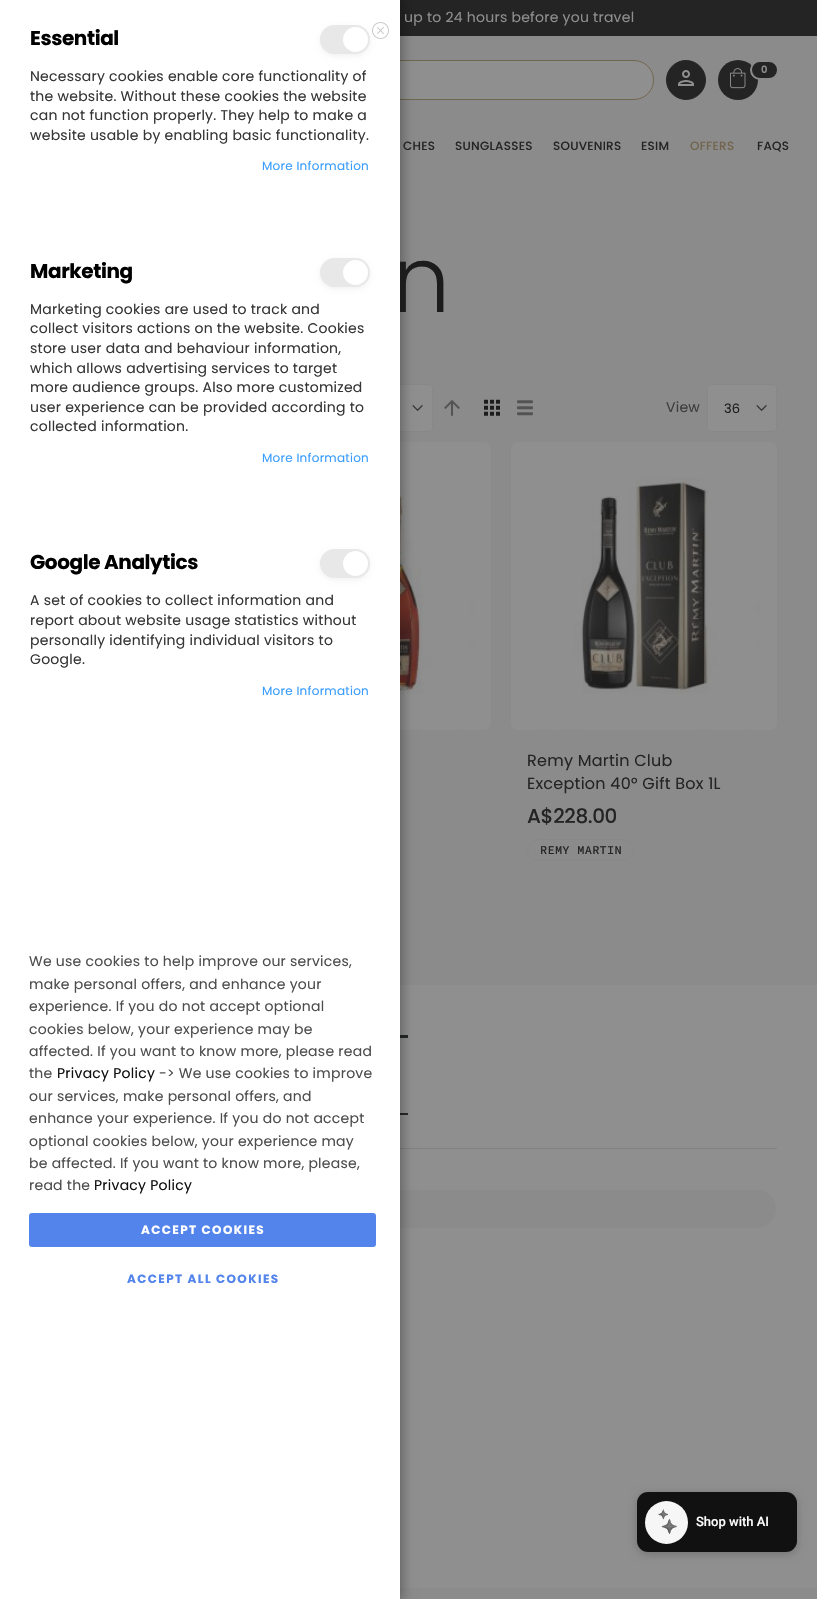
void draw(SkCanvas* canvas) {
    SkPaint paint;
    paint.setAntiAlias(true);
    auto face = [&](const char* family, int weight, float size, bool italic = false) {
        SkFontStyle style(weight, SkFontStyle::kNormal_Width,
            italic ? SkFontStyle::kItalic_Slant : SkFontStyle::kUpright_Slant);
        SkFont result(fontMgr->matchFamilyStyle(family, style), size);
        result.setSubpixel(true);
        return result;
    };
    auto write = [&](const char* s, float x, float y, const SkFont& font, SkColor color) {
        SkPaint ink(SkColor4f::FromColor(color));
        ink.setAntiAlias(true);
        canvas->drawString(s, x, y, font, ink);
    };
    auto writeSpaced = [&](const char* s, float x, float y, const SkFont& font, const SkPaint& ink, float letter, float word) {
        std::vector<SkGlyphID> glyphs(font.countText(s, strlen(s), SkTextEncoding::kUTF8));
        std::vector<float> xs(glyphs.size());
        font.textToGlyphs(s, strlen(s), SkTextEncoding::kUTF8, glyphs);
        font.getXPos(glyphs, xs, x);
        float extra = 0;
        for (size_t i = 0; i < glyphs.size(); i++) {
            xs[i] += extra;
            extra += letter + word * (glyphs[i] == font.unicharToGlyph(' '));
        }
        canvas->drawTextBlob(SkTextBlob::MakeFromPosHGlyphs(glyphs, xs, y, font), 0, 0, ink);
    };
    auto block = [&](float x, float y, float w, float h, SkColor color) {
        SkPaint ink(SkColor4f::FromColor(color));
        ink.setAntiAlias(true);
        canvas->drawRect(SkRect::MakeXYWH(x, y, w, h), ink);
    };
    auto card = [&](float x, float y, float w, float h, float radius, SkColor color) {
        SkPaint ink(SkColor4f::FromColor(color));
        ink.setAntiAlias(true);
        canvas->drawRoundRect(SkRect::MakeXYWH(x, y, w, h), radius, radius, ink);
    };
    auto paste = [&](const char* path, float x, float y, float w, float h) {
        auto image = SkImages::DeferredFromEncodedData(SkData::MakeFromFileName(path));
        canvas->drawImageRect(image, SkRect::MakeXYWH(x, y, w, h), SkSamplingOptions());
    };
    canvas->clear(SkColorSetRGB(139, 139, 139));
    block(400, 0, 417, 36, SkColorSetRGB(36, 36, 36));
    paint.setColor(SkColorSetRGB(143, 143, 143));
    canvas->drawRoundRect(SkRect::MakeXYWH(225.5f, 60.5f, 428, 39), 19.5f, 19.5f, paint);
    paint.setStyle(SkPaint::kStroke_Style);
    paint.setStrokeWidth(1);
    paint.setColor(SkColorSetRGB(114, 101, 77));
    canvas->drawRoundRect(SkRect::MakeXYWH(225.5f, 60.5f, 428, 39), 19.5f, 19.5f, paint);
    card(285, 384, 148, 48, 4, SkColorSetRGB(143, 143, 143));
    paste("pic4.png", 412, 405, 11, 6);
    paint.setColor(SkColorSetRGB(136, 136, 136));
    canvas->drawRoundRect(SkRect::MakeXYWH(285.5f, 384.5f, 147, 47), 3.5f, 3.5f, paint);
    paste("pic8.png", 400, 442, 91, 288);
    block(400, 985, 417, 603, SkColorSetRGB(143, 143, 143));
    paste("pic10.png", 400, 1035, 8, 80);
    block(400, 1148, 377, 1, SkColorSetRGB(129, 129, 129));
    card(41, 1190, 735, 38, 19, SkColorSetRGB(139, 139, 139));
    paint.setStyle(SkPaint::kFill_Style);
    paint.setColor(SkColorSetARGB(89, 0, 0, 0));
    paint.setMaskFilter(SkMaskFilter::MakeBlur(kNormal_SkBlurStyle, 6));
    canvas->drawRect(SkRect::MakeXYWH(-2, -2, 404, 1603), paint);
    paint.setMaskFilter(nullptr);
    auto kFont1 = face("Poppins", 300, 92);
    paint.setColor(SkColorSetRGB(28, 28, 28));
    writeSpaced("n", 392, 312, kFont1, paint, -5, 0);
    block(0, 0, 400, 1599, SK_ColorWHITE);
    auto kFont2 = face("Poppins", 700, 20);
    paint.setColor(SK_ColorBLACK);
    writeSpaced("Essential", 30, 45, kFont2, paint, -0.4f, 0);
    paste("pic1.png", 372, 22, 17, 17);
    paint.setColor(SkColorSetARGB(13, 0, 0, 0));
    paint.setMaskFilter(SkMaskFilter::MakeBlur(kNormal_SkBlurStyle, 2.5f));
    canvas->drawRoundRect(SkRect::MakeXYWH(320, 27, 50, 29), 14.5f, 14.5f, paint);
    paint.setMaskFilter(nullptr);
    card(320, 25, 50, 29, 14.5f, SkColorSetRGB(232, 232, 232));
    paint.setColor(SK_ColorWHITE);
    canvas->drawCircle(355.5f, 39.5f, 12.5f, paint);
    auto kFont3 = face("Poppins", 400, 14);
    paint.setColor(SkColorSetRGB(54, 54, 54));
    writeSpaced("Necessary cookies enable core functionality of", 30, 81, kFont3, paint, 0.25f, 0);
    writeSpaced("the website. Without these cookies the website", 30, 101, kFont3, paint, 0.25f, 0);
    writeSpaced("can not function properly. They help to make a", 30, 120, kFont3, paint, 0.25f, 0);
    writeSpaced("website usable by enabling basic functionality.", 30, 140, kFont3, paint, 0.25f, 0);
    auto kFont4 = face("Poppins", 400, 12);
    paint.setColor(SkColorSetRGB(56, 157, 254));
    writeSpaced("More Information", 262, 170, kFont4, paint, 0.25f, 0);
    paint.setColor(SK_ColorBLACK);
    writeSpaced("Marketing", 30, 278, kFont2, paint, -0.4f, 0);
    paint.setColor(SkColorSetARGB(13, 0, 0, 0));
    paint.setMaskFilter(SkMaskFilter::MakeBlur(kNormal_SkBlurStyle, 2.5f));
    canvas->drawRoundRect(SkRect::MakeXYWH(320, 260, 50, 29), 14.5f, 14.5f, paint);
    paint.setMaskFilter(nullptr);
    card(320, 258, 50, 29, 14.5f, SkColorSetRGB(232, 232, 232));
    paint.setColor(SK_ColorWHITE);
    canvas->drawCircle(355.5f, 272.5f, 12.5f, paint);
    paint.setColor(SkColorSetRGB(54, 54, 54));
    writeSpaced("Marketing cookies are used to track and", 30, 314, kFont3, paint, 0.25f, 0);
    writeSpaced("collect visitors actions on the website. Cookies", 30, 333, kFont3, paint, 0.25f, 0);
    writeSpaced("store user data and behaviour information,", 30, 353, kFont3, paint, 0.25f, 0);
    writeSpaced("which allows advertising services to target", 30, 373, kFont3, paint, 0.25f, 0);
    writeSpaced("more audience groups. Also more customized", 30, 392, kFont3, paint, 0.25f, 0);
    writeSpaced("user experience can be provided according to", 30, 412, kFont3, paint, 0.25f, 0);
    writeSpaced("collected information.", 30, 431, kFont3, paint, 0.25f, 0);
    paint.setColor(SkColorSetRGB(56, 157, 254));
    writeSpaced("More Information", 262, 462, kFont4, paint, 0.25f, 0);
    paint.setColor(SK_ColorBLACK);
    writeSpaced("Google Analytics", 30, 569, kFont2, paint, -0.4f, 0);
    paint.setColor(SkColorSetARGB(13, 0, 0, 0));
    paint.setMaskFilter(SkMaskFilter::MakeBlur(kNormal_SkBlurStyle, 2.5f));
    canvas->drawRoundRect(SkRect::MakeXYWH(320, 551, 50, 29), 14.5f, 14.5f, paint);
    paint.setMaskFilter(nullptr);
    card(320, 549, 50, 29, 14.5f, SkColorSetRGB(232, 232, 232));
    paint.setColor(SK_ColorWHITE);
    canvas->drawCircle(355.5f, 563.5f, 12.5f, paint);
    paint.setColor(SkColorSetRGB(54, 54, 54));
    writeSpaced("A set of cookies to collect information and", 30, 605, kFont3, paint, 0.25f, 0);
    writeSpaced("report about website usage statistics without", 30, 625, kFont3, paint, 0.25f, 0);
    writeSpaced("personally identifying individual visitors to", 30, 645, kFont3, paint, 0.25f, 0);
    writeSpaced("Google.", 30, 664, kFont3, paint, 0.25f, 0);
    paint.setColor(SkColorSetRGB(56, 157, 254));
    writeSpaced("More Information", 262, 695, kFont4, paint, 0.25f, 0);
    paint.setColor(SkColorSetRGB(77, 77, 77));
    writeSpaced("We use cookies to help improve our services,", 29, 966, kFont3, paint, 0.25f, 0);
    writeSpaced("make personal offers, and enhance your", 29, 989, kFont3, paint, 0.25f, 0);
    writeSpaced("experience. If you do not accept optional", 29, 1011, kFont3, paint, 0.25f, 0);
    writeSpaced("cookies below, your experience may be", 29, 1034, kFont3, paint, 0.25f, 0);
    writeSpaced("affected. If you want to know more, please read", 29, 1056, kFont3, paint, 0.25f, 0);
    writeSpaced("the", 29, 1078, kFont3, paint, 0.25f, 0);
    paint.setColor(SkColorSetRGB(17, 17, 17));
    writeSpaced("Privacy Policy", 57, 1078, kFont3, paint, 0.25f, 0);
    paint.setColor(SkColorSetRGB(77, 77, 77));
    writeSpaced("-> We use cookies to improve", 159, 1078, kFont3, paint, 0.25f, 0);
    writeSpaced("our services, make personal offers, and", 29, 1101, kFont3, paint, 0.25f, 0);
    writeSpaced("enhance your experience. If you do not accept", 29, 1123, kFont3, paint, 0.25f, 0);
    writeSpaced("optional cookies below, your experience may", 29, 1146, kFont3, paint, 0.25f, 0);
    writeSpaced("be affected. If you want to know more, please,", 29, 1168, kFont3, paint, 0.25f, 0);
    writeSpaced("read the", 29, 1190, kFont3, paint, 0.25f, 0);
    paint.setColor(SkColorSetRGB(17, 17, 17));
    writeSpaced("Privacy Policy", 94, 1190, kFont3, paint, 0.25f, 0);
    card(29, 1213, 347, 34, 3, SkColorSetRGB(83, 132, 236));
    auto kFont5 = face("Poppins", 700, 12);
    paint.setColor(SK_ColorWHITE);
    writeSpaced("ACCEPT COOKIES", 141, 1234, kFont5, paint, 1.4f, 0);
    paint.setColor(SkColorSetRGB(83, 132, 236));
    writeSpaced("ACCEPT ALL COOKIES", 127, 1283, kFont5, paint, 1.4f, 0);
    paint.setColor(SkColorSetRGB(143, 143, 143));
    writeSpaced("up to 24 hours before you travel", 404, 22, kFont3, paint, 0.25f, 0);
    paint.setColor(SkColorSetRGB(36, 36, 36));
    canvas->drawCircle(686, 80, 19.5f, paint);
    paint.setStyle(SkPaint::kStroke_Style);
    canvas->drawCircle(686, 80, 19.5f, paint);
    paste("pic2.png", 678, 70, 16, 16);
    paint.setStyle(SkPaint::kFill_Style);
    canvas->drawCircle(738, 80, 20, paint);
    paste("pic3.png", 730, 68, 16, 21);
    canvas->drawRoundRect(SkRect::MakeXYWH(751, 61, 27, 18), 9, 9, paint);
    paint.setStyle(SkPaint::kStroke_Style);
    paint.setStrokeWidth(2);
    paint.setColor(SkColorSetRGB(139, 139, 139));
    canvas->drawRoundRect(SkRect::MakeXYWH(751, 61, 27, 18), 9, 9, paint);
    auto kFont6 = face("Poppins", 600, 10);
    paint.setStyle(SkPaint::kFill_Style);
    paint.setColor(SkColorSetRGB(143, 143, 143));
    writeSpaced("0", 761, 73, kFont6, paint, 0.25f, 0);
    auto kFont7 = face("Poppins", 500, 12);
    paint.setColor(SkColorSetRGB(36, 36, 36));
    writeSpaced("CHES", 403, 150, kFont7, paint, 0.25f, 0);
    writeSpaced("SUNGLASSES", 455, 150, kFont7, paint, 0.25f, 0);
    writeSpaced("SOUVENIRS", 553, 150, kFont7, paint, 0.25f, 0);
    writeSpaced("ESIM", 641, 150, kFont7, paint, 0.25f, 0);
    paint.setColor(SkColorSetRGB(114, 101, 77));
    writeSpaced("OFFERS", 690, 150, kFont7, paint, 0.25f, 0);
    paint.setColor(SkColorSetRGB(36, 36, 36));
    writeSpaced("FAQS", 757, 150, kFont7, paint, 0.25f, 0);
    paste("pic5.png", 444, 400, 16, 16);
    paste("pic6.png", 484, 399, 16, 17);
    paste("pic7.png", 517, 400, 16, 16);
    paint.setColor(SkColorSetRGB(61, 61, 61));
    writeSpaced("View", 666, 412, kFont3, paint, 0.25f, 0);
    card(707, 384, 70, 48, 4, SkColorSetRGB(143, 143, 143));
    paste("pic4.png", 756, 405, 11, 6);
    paint.setStyle(SkPaint::kStroke_Style);
    paint.setStrokeWidth(1);
    paint.setColor(SkColorSetRGB(136, 136, 136));
    canvas->drawRoundRect(SkRect::MakeXYWH(707.5f, 384.5f, 69, 47), 3.5f, 3.5f, paint);
    auto kFont8 = face("Poppins", 400, 13);
    write("36", 724, 413, kFont8, SkColorSetRGB(28, 28, 28));
    paste("pic9.png", 511, 442, 266, 288);
    auto kFont9 = face("Poppins", 400, 16);
    paint.setStyle(SkPaint::kFill_Style);
    paint.setColor(SkColorSetRGB(36, 36, 36));
    writeSpaced("Remy Martin Club", 527, 766, kFont9, paint, 0.25f, 0);
    writeSpaced("Exception 40° Gift Box 1L", 527, 789, kFont9, paint, 0.25f, 0);
    auto kFont10 = face("Poppins", 500, 20);
    writeSpaced("A$228.00", 527, 823, kFont10, paint, -0.4f, 0);
    paint.setStyle(SkPaint::kStroke_Style);
    paint.setColor(SkColorSetRGB(136, 136, 136));
    canvas->drawRoundRect(SkRect::MakeXYWH(527.5f, 839.5f, 106, 21), 10.5f, 10.5f, paint);
    auto kFont11 = face("Source Code Pro", 500, 12);
    paint.setStyle(SkPaint::kFill_Style);
    paint.setColor(SkColorSetRGB(36, 36, 36));
    writeSpaced("REMY MARTIN", 540, 854, kFont11, paint, 0.25f, 0);
    paint.setColor(SkColorSetARGB(51, 0, 0, 0));
    paint.setMaskFilter(SkMaskFilter::MakeBlur(kNormal_SkBlurStyle, 5));
    canvas->drawRoundRect(SkRect::MakeXYWH(637, 1494, 160, 60), 11, 11, paint);
    paint.setMaskFilter(nullptr);
    card(637, 1492, 160, 60, 11, SkColorSetRGB(17, 17, 17));
    paint.setColor(SkColorSetRGB(246, 246, 246));
    canvas->drawCircle(666.5f, 1522.5f, 21.5f, paint);
    paste("pic11.png", 658, 1509, 19, 26);
    auto kFont12 = face("Roboto", 500, 13);
    write("Shop with AI", 696, 1526, kFont12, SK_ColorWHITE);
}
